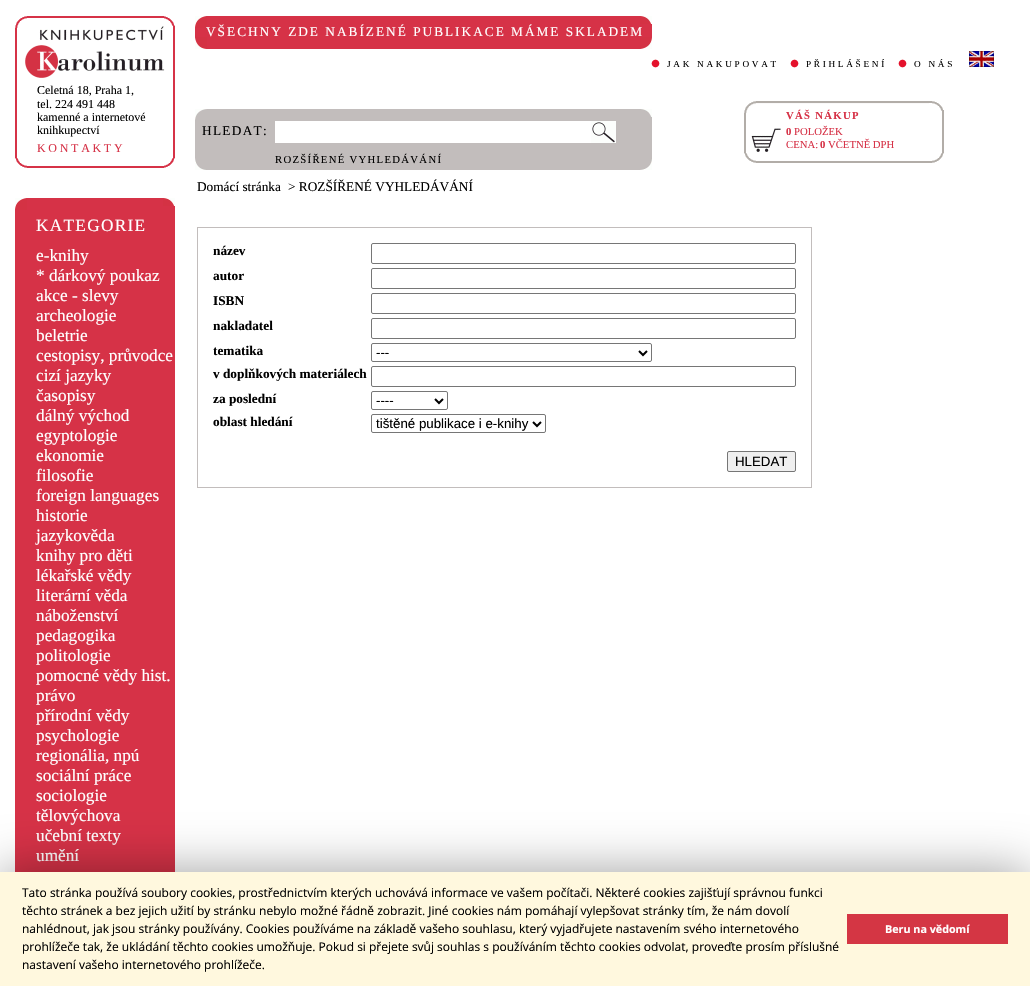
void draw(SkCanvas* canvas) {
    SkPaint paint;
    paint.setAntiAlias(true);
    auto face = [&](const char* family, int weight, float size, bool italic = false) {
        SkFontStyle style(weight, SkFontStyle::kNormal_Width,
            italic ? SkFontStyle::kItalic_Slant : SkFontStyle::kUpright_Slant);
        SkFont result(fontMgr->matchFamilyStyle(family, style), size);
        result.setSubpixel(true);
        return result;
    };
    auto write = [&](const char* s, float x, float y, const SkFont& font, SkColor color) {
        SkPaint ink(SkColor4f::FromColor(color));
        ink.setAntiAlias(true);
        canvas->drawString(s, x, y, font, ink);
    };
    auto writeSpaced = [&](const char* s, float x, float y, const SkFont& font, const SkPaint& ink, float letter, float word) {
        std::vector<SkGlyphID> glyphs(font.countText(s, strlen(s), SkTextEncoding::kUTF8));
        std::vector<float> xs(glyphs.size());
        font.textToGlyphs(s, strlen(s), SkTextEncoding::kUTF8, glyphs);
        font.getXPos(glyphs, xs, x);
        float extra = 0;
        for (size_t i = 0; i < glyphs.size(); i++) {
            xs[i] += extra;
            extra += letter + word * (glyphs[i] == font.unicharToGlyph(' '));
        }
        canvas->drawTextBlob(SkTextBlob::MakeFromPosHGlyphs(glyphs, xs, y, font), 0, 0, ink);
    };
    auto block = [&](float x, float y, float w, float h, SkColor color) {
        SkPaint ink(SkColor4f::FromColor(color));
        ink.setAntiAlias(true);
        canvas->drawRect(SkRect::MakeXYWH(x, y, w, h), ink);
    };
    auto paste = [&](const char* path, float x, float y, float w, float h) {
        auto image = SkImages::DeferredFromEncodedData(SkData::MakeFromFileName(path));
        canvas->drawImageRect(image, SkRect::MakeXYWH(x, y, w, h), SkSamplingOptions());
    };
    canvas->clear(SK_ColorWHITE);
    paste("pic1.png", 15, 16, 158, 142);
    paste("pic2.png", 164, 16, 11, 10);
    block(173, 26, 2, 132, SkColorSetRGB(214, 50, 71));
    paste("pic3.png", 25, 26, 140, 52);
    auto kFont1 = face("Liberation Serif", 400, 12);
    write("Celetná 18, Praha 1,", 37, 94, kFont1, SK_ColorBLACK);
    write("tel. 224 491 448", 37, 108, kFont1, SK_ColorBLACK);
    write("kamenné a internetové", 37, 121, kFont1, SK_ColorBLACK);
    write("knihkupectví", 37, 134, kFont1, SK_ColorBLACK);
    paint.setColor(SkColorSetRGB(214, 50, 71));
    writeSpaced("KONTAKTY", 37, 152, kFont1, paint, 2.7f, 0);
    paste("pic4.png", 15, 158, 149, 10);
    paste("pic5.png", 164, 158, 11, 10);
    block(15, 198, 160, 674, SkColorSetRGB(214, 50, 71));
    paste("pic6.png", 15, 198, 12, 12);
    paste("pic7.png", 163, 198, 12, 8);
    auto kFont2 = face("Liberation Serif", 400, 17.25f);
    paint.setColor(SK_ColorWHITE);
    writeSpaced("KATEGORIE", 36, 231, kFont2, paint, 1.3f, 0);
    write("e-knihy", 36, 261, kFont2, SK_ColorWHITE);
    write("* dárkový poukaz", 36, 281, kFont2, SK_ColorWHITE);
    write("akce - slevy", 36, 301, kFont2, SK_ColorWHITE);
    write("archeologie", 36, 321, kFont2, SK_ColorWHITE);
    write("beletrie", 36, 341, kFont2, SK_ColorWHITE);
    write("cestopisy, průvodce", 36, 361, kFont2, SK_ColorWHITE);
    write("cizí jazyky", 36, 381, kFont2, SK_ColorWHITE);
    write("časopisy", 36, 401, kFont2, SK_ColorWHITE);
    write("dálný východ", 36, 421, kFont2, SK_ColorWHITE);
    write("egyptologie", 36, 441, kFont2, SK_ColorWHITE);
    write("ekonomie", 36, 461, kFont2, SK_ColorWHITE);
    write("filosofie", 36, 481, kFont2, SK_ColorWHITE);
    write("foreign languages", 36, 501, kFont2, SK_ColorWHITE);
    write("historie", 36, 521, kFont2, SK_ColorWHITE);
    write("jazykověda", 36, 541, kFont2, SK_ColorWHITE);
    write("knihy pro děti", 36, 561, kFont2, SK_ColorWHITE);
    write("lékařské vědy", 36, 581, kFont2, SK_ColorWHITE);
    write("literární věda", 36, 601, kFont2, SK_ColorWHITE);
    write("náboženství", 36, 621, kFont2, SK_ColorWHITE);
    write("pedagogika", 36, 641, kFont2, SK_ColorWHITE);
    write("politologie", 36, 661, kFont2, SK_ColorWHITE);
    write("pomocné vědy hist.", 36, 681, kFont2, SK_ColorWHITE);
    write("právo", 36, 701, kFont2, SK_ColorWHITE);
    write("přírodní vědy", 36, 721, kFont2, SK_ColorWHITE);
    write("psychologie", 36, 741, kFont2, SK_ColorWHITE);
    write("regionália, npú", 36, 761, kFont2, SK_ColorWHITE);
    write("sociální práce", 36, 781, kFont2, SK_ColorWHITE);
    write("sociologie", 36, 801, kFont2, SK_ColorWHITE);
    write("tělovýchova", 36, 821, kFont2, SK_ColorWHITE);
    write("učební texty", 36, 841, kFont2, SK_ColorWHITE);
    write("umění", 36, 861, kFont2, SK_ColorWHITE);
    block(195, 16, 457, 33, SkColorSetRGB(214, 50, 71));
    paste("pic8.png", 195, 37, 12, 12);
    paste("pic9.png", 640, 37, 12, 12);
    paste("pic6.png", 195, 16, 12, 12);
    paste("pic7.png", 640, 16, 12, 8);
    auto kFont3 = face("Liberation Serif", 400, 13.3f);
    writeSpaced("VŠECHNY ZDE NABÍZENÉ PUBLIKACE MÁME SKLADEM", 206, 36, kFont3, paint, 2, 0);
    paste("pic10.png", 651, 59, 9, 9);
    auto kFont4 = face("Liberation Serif", 400, 9.25f);
    paint.setColor(SK_ColorBLACK);
    writeSpaced("JAK NAKUPOVAT", 667, 67, kFont4, paint, 2.7f, 0);
    paste("pic10.png", 790, 59, 9, 9);
    writeSpaced("PŘIHLÁŠENÍ", 806, 67, kFont4, paint, 2.7f, 0);
    paste("pic10.png", 898, 59, 9, 9);
    writeSpaced("O NÁS", 914, 67, kFont4, paint, 2.7f, 0);
    paste("pic11.png", 969, 51, 25, 16);
    block(195, 109, 457, 61, SkColorSetRGB(194, 189, 188));
    paste("pic12.png", 195, 158, 11, 12);
    paste("pic13.png", 640, 159, 12, 11);
    paste("pic14.png", 195, 109, 12, 11);
    paste("pic15.png", 641, 109, 11, 8);
    writeSpaced("HLEDAT:", 202, 135, kFont3, paint, 1.3f, 0);
    block(275, 121, 316, 22, SK_ColorWHITE);
    paste("pic16.png", 591, 121, 25, 22);
    auto kFont5 = face("Liberation Serif", 400, 10.7f);
    writeSpaced("ROZŠÍŘENÉ VYHLEDÁVÁNÍ", 275, 163, kFont5, paint, 1.3f, 0);
    paste("pic17.png", 744, 101, 198, 52);
    paste("pic18.png", 929, 101, 15, 10);
    block(942, 110, 2, 44, SkColorSetRGB(178, 173, 168));
    auto kFont6 = face("Liberation Serif", 700, 10.7f);
    paint.setColor(SkColorSetRGB(214, 50, 71));
    writeSpaced("VÁŠ NÁKUP", 786, 119, kFont6, paint, 1.3f, 0);
    paste("pic19.png", 751, 128, 30, 24);
    write("0", 786, 135, kFont6, SkColorSetRGB(214, 50, 71));
    write("POLOŽEK", 794, 135, kFont5, SkColorSetRGB(214, 50, 71));
    write("CENA:", 786, 148, kFont5, SkColorSetRGB(214, 50, 71));
    write("0", 820, 148, kFont6, SkColorSetRGB(214, 50, 71));
    write("VČETNĚ DPH", 828, 148, kFont5, SkColorSetRGB(214, 50, 71));
    paste("pic20.png", 744, 153, 188, 10);
    paste("pic21.png", 932, 153, 12, 10);
    write("Domácí stránka", 197, 191, kFont3, SK_ColorBLACK);
    write("> ROZŠÍŘENÉ VYHLEDÁVÁNÍ", 288, 191, kFont3, SK_ColorBLACK);
    paint.setStyle(SkPaint::kStroke_Style);
    paint.setStrokeWidth(1);
    paint.setColor(SkColorSetRGB(194, 189, 188));
    canvas->drawRect(SkRect::MakeXYWH(197.5f, 227.5f, 614, 260), paint);
    auto kFont7 = face("Liberation Serif", 700, 13.3f);
    write("název", 213, 255, kFont7, SK_ColorBLACK);
    paint.setColor(SkColorSetRGB(118, 118, 118));
    canvas->drawRoundRect(SkRect::MakeXYWH(371.5f, 243.5f, 424, 20), 1.5f, 1.5f, paint);
    write("autor", 213, 280, kFont7, SK_ColorBLACK);
    canvas->drawRoundRect(SkRect::MakeXYWH(371.5f, 268.5f, 424, 20), 1.5f, 1.5f, paint);
    write("ISBN", 213, 305, kFont7, SK_ColorBLACK);
    canvas->drawRoundRect(SkRect::MakeXYWH(371.5f, 293.5f, 424, 20), 1.5f, 1.5f, paint);
    write("nakladatel", 213, 330, kFont7, SK_ColorBLACK);
    canvas->drawRoundRect(SkRect::MakeXYWH(371.5f, 318.5f, 424, 20), 1.5f, 1.5f, paint);
    write("tematika", 213, 355, kFont7, SK_ColorBLACK);
    canvas->drawRoundRect(SkRect::MakeXYWH(371.5f, 343.5f, 280, 18), 1.5f, 1.5f, paint);
    paint.setStrokeWidth(2);
    paint.setColor(SK_ColorBLACK);
    canvas->drawPath(SkPathBuilder().moveTo(639, 351).lineTo(643, 355).lineTo(647, 351).detach(), paint);
    auto kFont8 = face("Liberation Sans", 400, 13.3f);
    write("---", 376, 357, kFont8, SK_ColorBLACK);
    write("v doplňkových materiálech", 213, 378, kFont7, SK_ColorBLACK);
    paint.setStrokeWidth(1);
    paint.setColor(SkColorSetRGB(118, 118, 118));
    canvas->drawRoundRect(SkRect::MakeXYWH(371.5f, 366.5f, 424, 20), 1.5f, 1.5f, paint);
    write("za poslední", 213, 403, kFont7, SK_ColorBLACK);
    canvas->drawRoundRect(SkRect::MakeXYWH(371.5f, 391.5f, 76, 18), 1.5f, 1.5f, paint);
    paint.setStrokeWidth(2);
    paint.setColor(SK_ColorBLACK);
    canvas->drawPath(SkPathBuilder().moveTo(435, 399).lineTo(439, 403).lineTo(443, 399).detach(), paint);
    write("----", 376, 405, kFont8, SK_ColorBLACK);
    write("oblast hledání", 213, 426, kFont7, SK_ColorBLACK);
    paint.setStrokeWidth(1);
    paint.setColor(SkColorSetRGB(118, 118, 118));
    canvas->drawRoundRect(SkRect::MakeXYWH(371.5f, 414.5f, 174, 18), 1.5f, 1.5f, paint);
    paint.setStrokeWidth(2);
    paint.setColor(SK_ColorBLACK);
    canvas->drawPath(SkPathBuilder().moveTo(533, 422).lineTo(537, 426).lineTo(541, 422).detach(), paint);
    write("tištěné publikace i e-knihy", 376, 428, kFont8, SK_ColorBLACK);
    paint.setStyle(SkPaint::kFill_Style);
    paint.setColor(SkColorSetRGB(239, 239, 239));
    canvas->drawRoundRect(SkRect::MakeXYWH(727.5f, 451.5f, 68, 20), 1.5f, 1.5f, paint);
    paint.setStyle(SkPaint::kStroke_Style);
    paint.setStrokeWidth(1);
    paint.setColor(SkColorSetRGB(118, 118, 118));
    canvas->drawRoundRect(SkRect::MakeXYWH(727.5f, 451.5f, 68, 20), 1.5f, 1.5f, paint);
    write("HLEDAT", 735, 466, kFont8, SK_ColorBLACK);
    paint.setStyle(SkPaint::kFill_Style);
    paint.setColor(SkColorSetARGB(97, 0, 0, 0));
    paint.setMaskFilter(SkMaskFilter::MakeBlur(kNormal_SkBlurStyle, 25));
    canvas->drawRect(SkRect::MakeXYWH(0, 872, 1030, 114), paint);
    paint.setMaskFilter(nullptr);
    block(0, 872, 1030, 114, SkColorSetRGB(255, 248, 222));
    auto kFont9 = face("Open Sans", 400, 12);
    write("Tato stránka používá soubory cookies, prostřednictvím kterých uchovává informace ve vašem počítači. Některé cookies zajišťují správnou funkci", 22, 897, kFont9, SK_ColorBLACK);
    write("těchto stránek a bez jejich užití by stránku nebylo možné řádně zobrazit. Jiné cookies nám pomáhají vylepšovat stránky tím, že nám dovolí", 22, 915, kFont9, SK_ColorBLACK);
    write("nahlédnout, jak jsou stránky používány. Cookies používáme na základě vašeho souhlasu, který vyjadřujete nastavením svého internetového", 22, 933, kFont9, SK_ColorBLACK);
    write("prohlížeče tak, že ukládání těchto cookies umožňuje. Pokud si přejete svůj souhlas s používáním těchto cookies odvolat, proveďte prosím příslušné", 22, 951, kFont9, SK_ColorBLACK);
    write("nastavení vašeho internetového prohlížeče.", 22, 969, kFont9, SK_ColorBLACK);
    block(847, 914, 161, 30, SkColorSetRGB(212, 54, 68));
    auto kFont10 = face("Open Sans", 700, 10.75f);
    write("Beru na vědomí", 885, 933, kFont10, SK_ColorWHITE);
}
